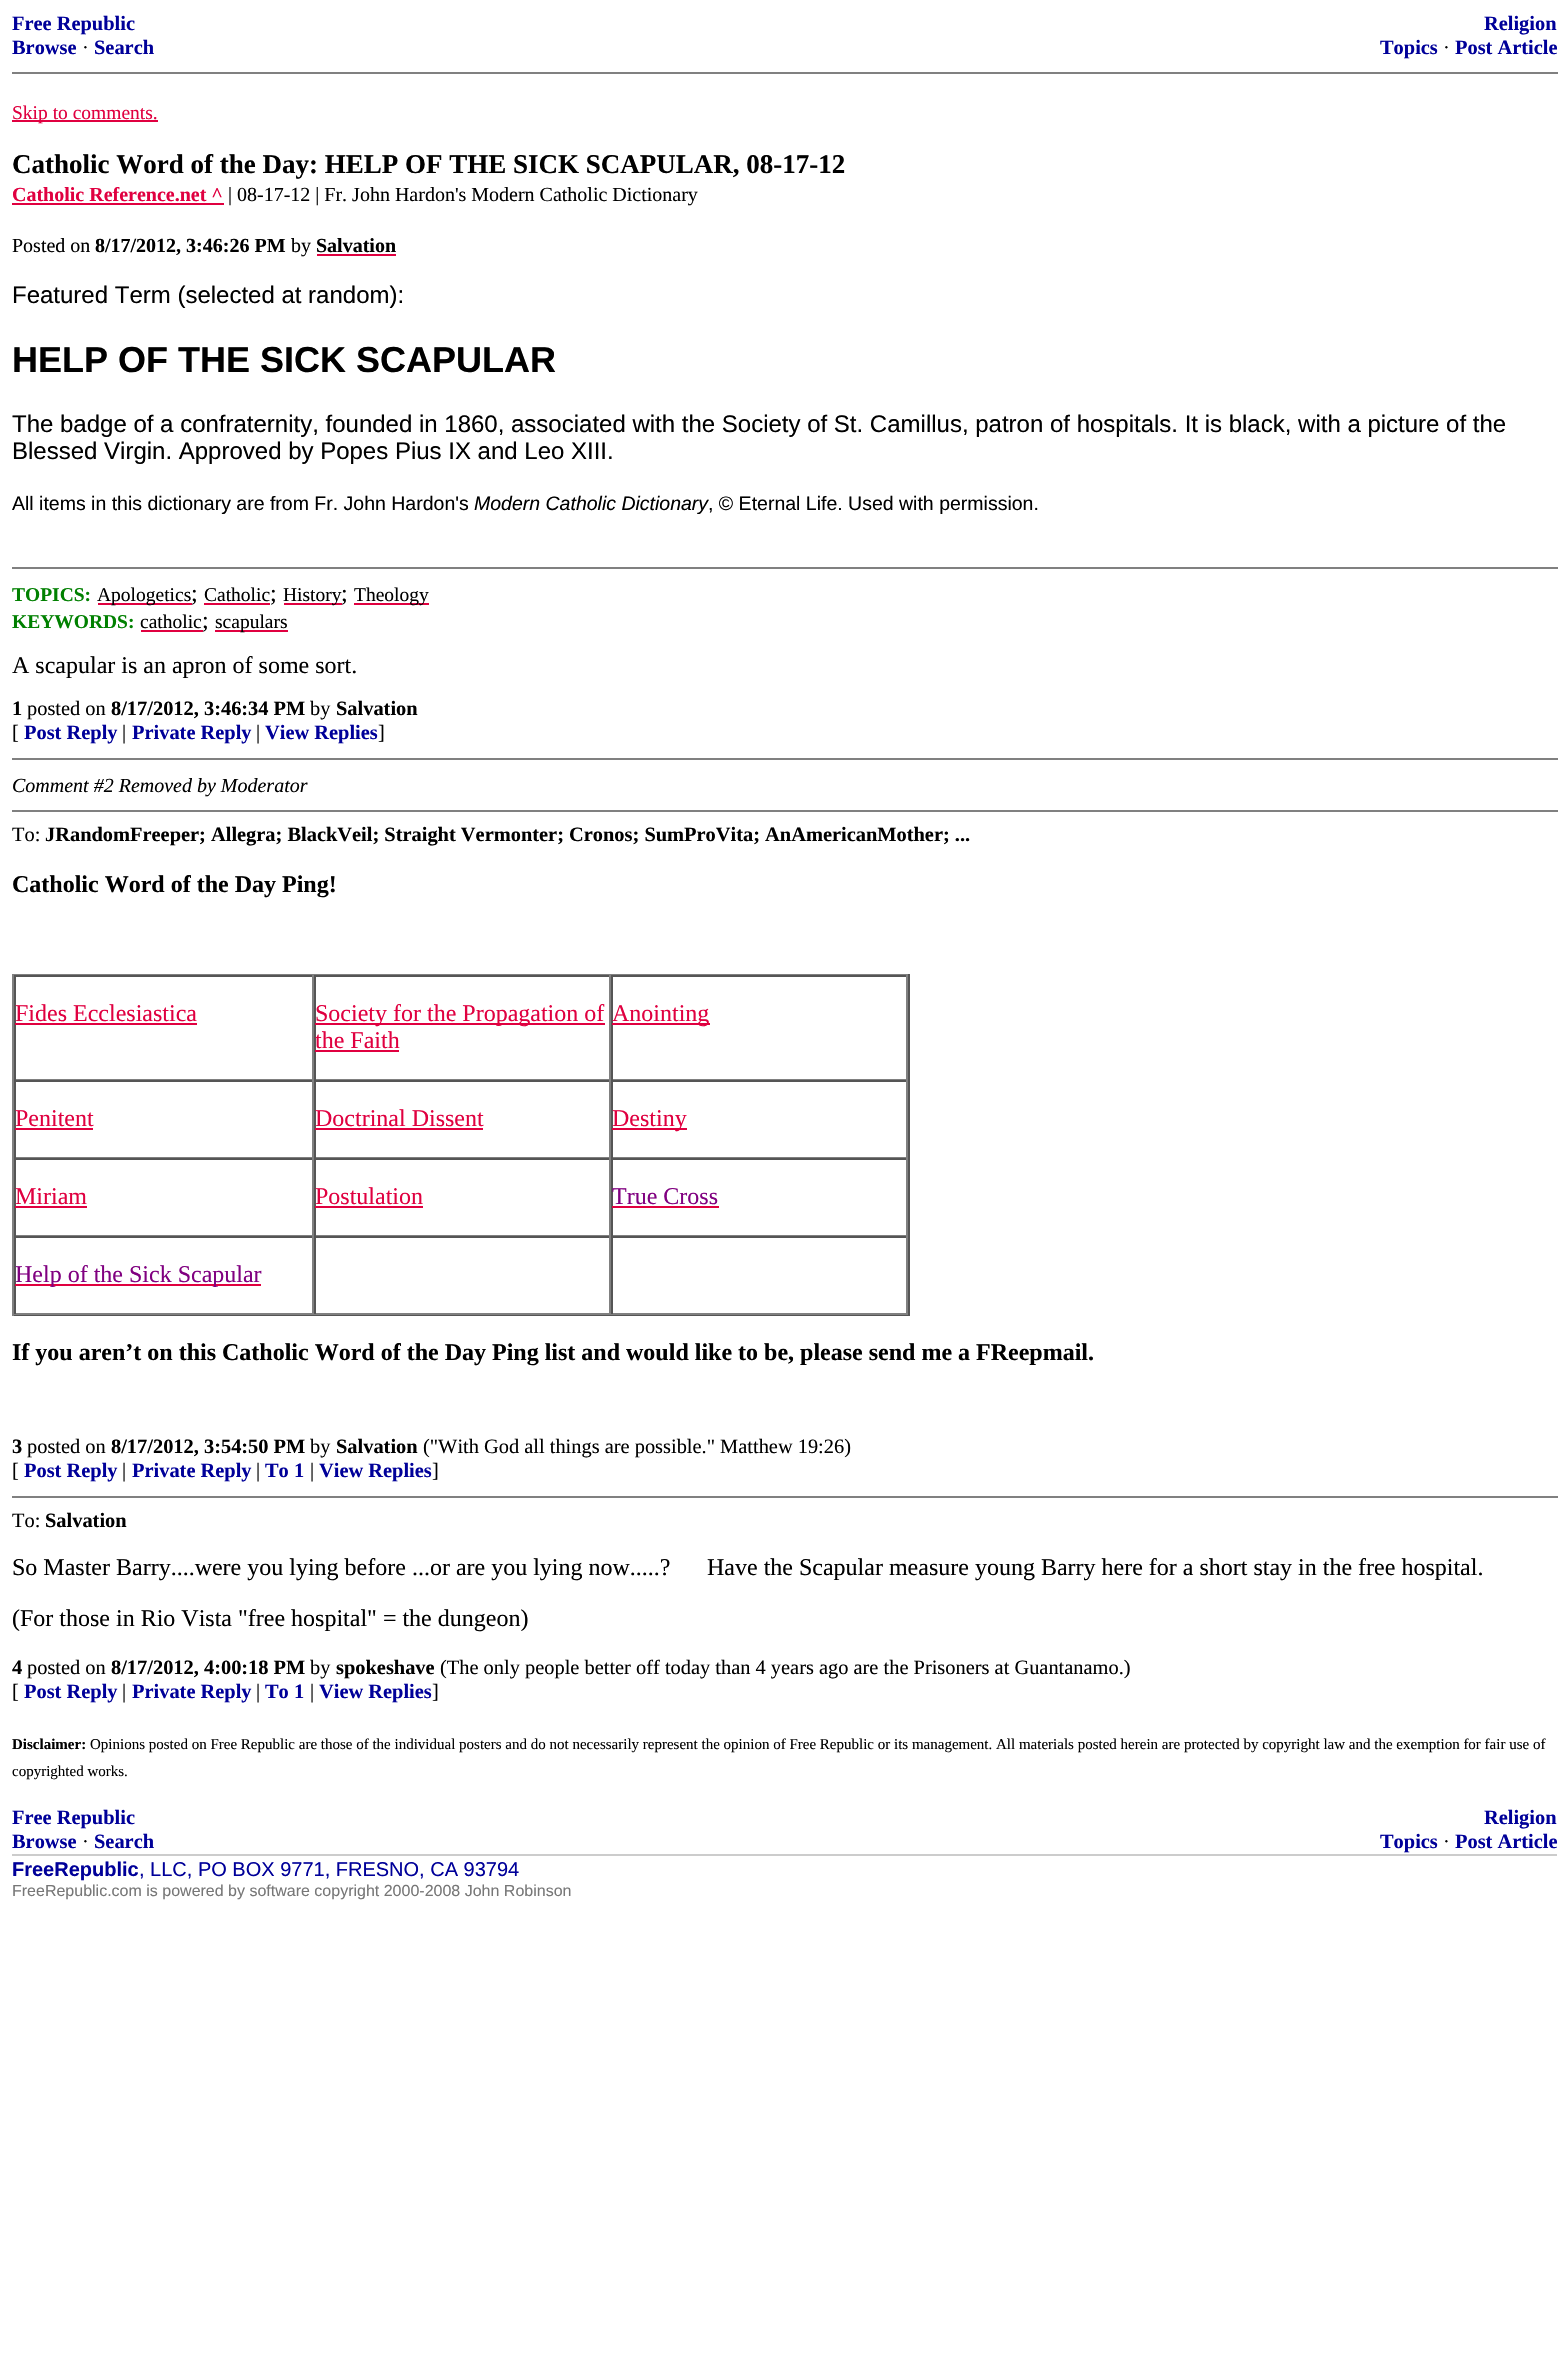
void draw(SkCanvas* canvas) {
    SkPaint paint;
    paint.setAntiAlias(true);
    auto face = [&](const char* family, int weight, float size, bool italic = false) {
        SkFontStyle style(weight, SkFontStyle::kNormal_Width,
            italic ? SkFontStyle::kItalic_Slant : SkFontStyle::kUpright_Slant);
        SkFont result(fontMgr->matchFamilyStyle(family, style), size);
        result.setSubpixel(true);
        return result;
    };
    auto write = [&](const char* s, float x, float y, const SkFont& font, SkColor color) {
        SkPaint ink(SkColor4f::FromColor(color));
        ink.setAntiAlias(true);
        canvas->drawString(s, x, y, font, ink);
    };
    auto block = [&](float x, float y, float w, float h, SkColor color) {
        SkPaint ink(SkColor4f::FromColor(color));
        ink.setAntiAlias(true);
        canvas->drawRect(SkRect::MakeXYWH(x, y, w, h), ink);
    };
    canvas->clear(SK_ColorWHITE);
    auto kFont1 = face("Liberation Serif", 700, 20.4f);
    write("Free Republic", 12, 30, kFont1, SkColorSetRGB(0, 0, 153));
    write("Browse", 12, 54, kFont1, SkColorSetRGB(0, 0, 153));
    auto kFont2 = face("Liberation Serif", 400, 20.4f);
    write("·", 82, 54, kFont2, SK_ColorBLACK);
    write("Search", 94, 54, kFont1, SkColorSetRGB(0, 0, 153));
    write("Religion", 1484, 30, kFont1, SkColorSetRGB(0, 0, 153));
    write("Topics", 1380, 54, kFont1, SkColorSetRGB(0, 0, 153));
    write("·", 1443, 54, kFont2, SK_ColorBLACK);
    write("Post Article", 1455, 54, kFont1, SkColorSetRGB(0, 0, 153));
    block(12, 72, 1546, 2, SkColorSetRGB(128, 128, 128));
    block(12, 120, 146, 2, SkColorSetRGB(224, 0, 64));
    auto kFont3 = face("Liberation Serif", 400, 19.5f);
    write("Skip to comments.", 12, 119, kFont3, SkColorSetRGB(224, 0, 64));
    auto kFont4 = face("Liberation Serif", 700, 27);
    write("Catholic Word of the Day: HELP OF THE SICK SCAPULAR, 08-17-12", 12, 173, kFont4, SK_ColorBLACK);
    auto kFont5 = face("Liberation Serif", 700, 20);
    write("Catholic Reference.net ^", 12, 201, kFont5, SkColorSetRGB(224, 0, 64));
    block(12, 203, 212, 2, SkColorSetRGB(224, 0, 64));
    auto kFont6 = face("Liberation Serif", 400, 20);
    write("| 08-17-12 | Fr. John Hardon's Modern Catholic Dictionary", 228, 201, kFont6, SK_ColorBLACK);
    write("Posted on", 12, 252, kFont6, SK_ColorBLACK);
    write("8/17/2012, 3:46:26 PM", 95, 252, kFont5, SK_ColorBLACK);
    write("by", 291, 252, kFont6, SK_ColorBLACK);
    write("Salvation", 316, 252, kFont5, SK_ColorBLACK);
    block(317, 254, 79, 2, SkColorSetRGB(224, 0, 64));
    auto kFont7 = face("Liberation Sans", 400, 24);
    write("Featured Term (selected at random):", 12, 303, kFont7, SK_ColorBLACK);
    auto kFont8 = face("Liberation Sans", 700, 36);
    write("HELP OF THE SICK SCAPULAR", 12, 372, kFont8, SK_ColorBLACK);
    write("The badge of a confraternity, founded in 1860, associated with the Society of St. Camillus, patron of hospitals. It is black, with a picture of the", 12, 432, kFont7, SK_ColorBLACK);
    write("Blessed Virgin. Approved by Popes Pius IX and Leo XIII.", 12, 459, kFont7, SK_ColorBLACK);
    auto kFont9 = face("Liberation Sans", 400, 19.5f);
    write("All items in this dictionary are from Fr. John Hardon's", 12, 510, kFont9, SK_ColorBLACK);
    auto kFont10 = face("Liberation Sans", 400, 19.5f, true);
    write("Modern Catholic Dictionary", 474, 510, kFont10, SK_ColorBLACK);
    write(", © Eternal Life. Used with permission.", 708, 510, kFont9, SK_ColorBLACK);
    block(12, 567, 1546, 2, SkColorSetRGB(128, 128, 128));
    auto kFont11 = face("Liberation Serif", 700, 19.5f);
    write("TOPICS:", 12, 601, kFont11, SkColorSetRGB(0, 128, 0));
    block(98, 603, 94, 2, SkColorSetRGB(224, 0, 64));
    write("Apologetics", 97, 601, kFont3, SK_ColorBLACK);
    auto kFont12 = face("Liberation Serif", 400, 24);
    write(";", 191, 601, kFont12, SK_ColorBLACK);
    write("Catholic", 204, 601, kFont3, SK_ColorBLACK);
    block(204, 603, 66, 2, SkColorSetRGB(224, 0, 64));
    write(";", 270, 601, kFont12, SK_ColorBLACK);
    block(284, 603, 58, 2, SkColorSetRGB(224, 0, 64));
    write("History", 283, 601, kFont3, SK_ColorBLACK);
    write(";", 341, 601, kFont12, SK_ColorBLACK);
    block(354, 603, 75, 2, SkColorSetRGB(224, 0, 64));
    write("Theology", 354, 601, kFont3, SK_ColorBLACK);
    write("KEYWORDS:", 12, 628, kFont11, SkColorSetRGB(0, 128, 0));
    write("catholic", 140, 628, kFont3, SK_ColorBLACK);
    block(141, 630, 62, 2, SkColorSetRGB(224, 0, 64));
    write(";", 202, 628, kFont12, SK_ColorBLACK);
    block(215, 630, 73, 2, SkColorSetRGB(224, 0, 64));
    write("scapulars", 215, 628, kFont3, SK_ColorBLACK);
    write("A scapular is an apron of some sort.", 12, 673, kFont12, SK_ColorBLACK);
    write("1", 12, 715, kFont1, SK_ColorBLACK);
    write("posted on", 27, 715, kFont2, SK_ColorBLACK);
    write("8/17/2012, 3:46:34 PM", 111, 715, kFont1, SK_ColorBLACK);
    write("by", 310, 715, kFont2, SK_ColorBLACK);
    write("Salvation", 336, 715, kFont1, SK_ColorBLACK);
    write("[", 12, 739, kFont2, SK_ColorBLACK);
    write("Post Reply", 24, 739, kFont1, SkColorSetRGB(0, 0, 153));
    write("|", 122, 739, kFont2, SK_ColorBLACK);
    write("Private Reply", 132, 739, kFont1, SkColorSetRGB(0, 0, 153));
    write("|", 256, 739, kFont2, SK_ColorBLACK);
    write("View Replies", 265, 739, kFont1, SkColorSetRGB(0, 0, 153));
    write("]", 378, 739, kFont2, SK_ColorBLACK);
    block(12, 758, 1546, 2, SkColorSetRGB(128, 128, 128));
    auto kFont13 = face("Liberation Serif", 400, 20, true);
    write("Comment #2 Removed by Moderator", 12, 792, kFont13, SK_ColorBLACK);
    block(12, 810, 1546, 2, SkColorSetRGB(128, 128, 128));
    write("To:", 12, 841, kFont2, SK_ColorBLACK);
    write("JRandomFreeper; Allegra; BlackVeil; Straight Vermonter; Cronos; SumProVita; AnAmericanMother; ...", 45, 841, kFont1, SK_ColorBLACK);
    auto kFont14 = face("Liberation Serif", 700, 24);
    write("Catholic Word of the Day Ping!", 12, 892, kFont14, SK_ColorBLACK);
    block(12, 974, 897, 1, SkColorSetRGB(128, 128, 128));
    block(908, 974, 2, 342, SkColorSetRGB(85, 85, 85));
    block(12, 1314, 897, 2, SkColorSetRGB(85, 85, 85));
    block(12, 974, 2, 342, SkColorSetRGB(128, 128, 128));
    block(14, 975, 894, 2, SkColorSetRGB(85, 85, 85));
    block(312, 975, 2, 105, SkColorSetRGB(128, 128, 128));
    block(14, 1079, 300, 1, SkColorSetRGB(128, 128, 128));
    block(14, 975, 2, 105, SkColorSetRGB(85, 85, 85));
    write("Fides Ecclesiastica", 15, 1021, kFont12, SkColorSetRGB(224, 0, 64));
    block(15, 1023, 182, 2, SkColorSetRGB(224, 0, 64));
    block(609, 975, 2, 105, SkColorSetRGB(128, 128, 128));
    block(314, 1079, 297, 1, SkColorSetRGB(128, 128, 128));
    block(314, 975, 2, 105, SkColorSetRGB(85, 85, 85));
    block(315, 1023, 290, 2, SkColorSetRGB(224, 0, 64));
    write("Society for the Propagation of", 315, 1021, kFont12, SkColorSetRGB(224, 0, 64));
    write("the Faith", 315, 1048, kFont12, SkColorSetRGB(224, 0, 64));
    block(315, 1050, 84, 2, SkColorSetRGB(224, 0, 64));
    block(906, 975, 2, 105, SkColorSetRGB(128, 128, 128));
    block(611, 1079, 297, 1, SkColorSetRGB(128, 128, 128));
    block(611, 975, 2, 105, SkColorSetRGB(85, 85, 85));
    block(612, 1023, 98, 2, SkColorSetRGB(224, 0, 64));
    write("Anointing", 612, 1021, kFont12, SkColorSetRGB(224, 0, 64));
    block(14, 1080, 894, 2, SkColorSetRGB(85, 85, 85));
    block(312, 1080, 2, 78, SkColorSetRGB(128, 128, 128));
    block(14, 1157, 300, 1, SkColorSetRGB(128, 128, 128));
    block(14, 1080, 2, 78, SkColorSetRGB(85, 85, 85));
    write("Penitent", 15, 1126, kFont12, SkColorSetRGB(224, 0, 64));
    block(15, 1128, 78, 2, SkColorSetRGB(224, 0, 64));
    block(609, 1080, 2, 78, SkColorSetRGB(128, 128, 128));
    block(314, 1157, 297, 1, SkColorSetRGB(128, 128, 128));
    block(314, 1080, 2, 78, SkColorSetRGB(85, 85, 85));
    write("Doctrinal Dissent", 315, 1126, kFont12, SkColorSetRGB(224, 0, 64));
    block(315, 1128, 168, 2, SkColorSetRGB(224, 0, 64));
    block(906, 1080, 2, 78, SkColorSetRGB(128, 128, 128));
    block(611, 1157, 297, 1, SkColorSetRGB(128, 128, 128));
    block(611, 1080, 2, 78, SkColorSetRGB(85, 85, 85));
    block(612, 1128, 75, 2, SkColorSetRGB(224, 0, 64));
    write("Destiny", 612, 1126, kFont12, SkColorSetRGB(224, 0, 64));
    block(14, 1158, 894, 2, SkColorSetRGB(85, 85, 85));
    block(312, 1158, 2, 78, SkColorSetRGB(128, 128, 128));
    block(14, 1235, 300, 1, SkColorSetRGB(128, 128, 128));
    block(14, 1158, 2, 78, SkColorSetRGB(85, 85, 85));
    write("Miriam", 15, 1204, kFont12, SkColorSetRGB(224, 0, 64));
    block(15, 1206, 72, 2, SkColorSetRGB(224, 0, 64));
    block(609, 1158, 2, 78, SkColorSetRGB(128, 128, 128));
    block(314, 1235, 297, 1, SkColorSetRGB(128, 128, 128));
    block(314, 1158, 2, 78, SkColorSetRGB(85, 85, 85));
    write("Postulation", 315, 1204, kFont12, SkColorSetRGB(224, 0, 64));
    block(315, 1206, 108, 2, SkColorSetRGB(224, 0, 64));
    block(906, 1158, 2, 78, SkColorSetRGB(128, 128, 128));
    block(611, 1235, 297, 1, SkColorSetRGB(128, 128, 128));
    block(611, 1158, 2, 78, SkColorSetRGB(85, 85, 85));
    write("True Cross", 612, 1204, kFont12, SkColorSetRGB(128, 0, 128));
    block(612, 1206, 107, 2, SkColorSetRGB(224, 0, 64));
    block(14, 1236, 894, 2, SkColorSetRGB(85, 85, 85));
    block(312, 1236, 2, 78, SkColorSetRGB(128, 128, 128));
    block(14, 1313, 300, 2, SkColorSetRGB(128, 128, 128));
    block(14, 1236, 2, 78, SkColorSetRGB(85, 85, 85));
    block(15, 1284, 246, 2, SkColorSetRGB(224, 0, 64));
    write("Help of the Sick Scapular", 15, 1282, kFont12, SkColorSetRGB(128, 0, 128));
    block(609, 1236, 2, 78, SkColorSetRGB(128, 128, 128));
    block(314, 1313, 297, 2, SkColorSetRGB(128, 128, 128));
    block(314, 1236, 2, 78, SkColorSetRGB(85, 85, 85));
    block(906, 1236, 2, 78, SkColorSetRGB(128, 128, 128));
    block(611, 1313, 297, 2, SkColorSetRGB(128, 128, 128));
    block(611, 1236, 2, 78, SkColorSetRGB(85, 85, 85));
    write("If you aren’t on this Catholic Word of the Day Ping list and would like to be, please send me a FReepmail.", 12, 1360, kFont14, SK_ColorBLACK);
    write("3", 12, 1453, kFont1, SK_ColorBLACK);
    write("posted on", 27, 1453, kFont2, SK_ColorBLACK);
    write("8/17/2012, 3:54:50 PM", 111, 1453, kFont1, SK_ColorBLACK);
    write("by", 310, 1453, kFont2, SK_ColorBLACK);
    write("Salvation", 336, 1453, kFont1, SK_ColorBLACK);
    write("(\"With God all things are possible.\" Matthew 19:26)", 423, 1453, kFont2, SK_ColorBLACK);
    write("[", 12, 1477, kFont2, SK_ColorBLACK);
    write("Post Reply", 24, 1477, kFont1, SkColorSetRGB(0, 0, 153));
    write("|", 122, 1477, kFont2, SK_ColorBLACK);
    write("Private Reply", 132, 1477, kFont1, SkColorSetRGB(0, 0, 153));
    write("|", 256, 1477, kFont2, SK_ColorBLACK);
    write("To 1", 265, 1477, kFont1, SkColorSetRGB(0, 0, 153));
    write("|", 310, 1477, kFont2, SK_ColorBLACK);
    write("View Replies", 319, 1477, kFont1, SkColorSetRGB(0, 0, 153));
    write("]", 432, 1477, kFont2, SK_ColorBLACK);
    block(12, 1496, 1546, 2, SkColorSetRGB(128, 128, 128));
    write("To:", 12, 1527, kFont2, SK_ColorBLACK);
    write("Salvation", 45, 1527, kFont1, SK_ColorBLACK);
    write("So Master Barry....were you lying before ...or are you lying now.....?", 12, 1575, kFont12, SK_ColorBLACK);
    write("Have the Scapular measure young Barry here for a short stay in the free hospital.", 707, 1575, kFont12, SK_ColorBLACK);
    write("(For those in Rio Vista \"free hospital\" = the dungeon)", 12, 1626, kFont12, SK_ColorBLACK);
    write("4", 12, 1674, kFont1, SK_ColorBLACK);
    write("posted on", 27, 1674, kFont2, SK_ColorBLACK);
    write("8/17/2012, 4:00:18 PM", 111, 1674, kFont1, SK_ColorBLACK);
    write("by", 310, 1674, kFont2, SK_ColorBLACK);
    write("spokeshave", 336, 1674, kFont1, SK_ColorBLACK);
    write("(The only people better off today than 4 years ago are the Prisoners at Guantanamo.)", 440, 1674, kFont2, SK_ColorBLACK);
    write("[", 12, 1698, kFont2, SK_ColorBLACK);
    write("Post Reply", 24, 1698, kFont1, SkColorSetRGB(0, 0, 153));
    write("|", 122, 1698, kFont2, SK_ColorBLACK);
    write("Private Reply", 132, 1698, kFont1, SkColorSetRGB(0, 0, 153));
    write("|", 256, 1698, kFont2, SK_ColorBLACK);
    write("To 1", 265, 1698, kFont1, SkColorSetRGB(0, 0, 153));
    write("|", 310, 1698, kFont2, SK_ColorBLACK);
    write("View Replies", 319, 1698, kFont1, SkColorSetRGB(0, 0, 153));
    write("]", 432, 1698, kFont2, SK_ColorBLACK);
    auto kFont15 = face("Liberation Serif", 700, 15);
    write("Disclaimer:", 12, 1749, kFont15, SK_ColorBLACK);
    auto kFont16 = face("Liberation Serif", 400, 15);
    write("Opinions posted on Free Republic are those of the individual posters and do not necessarily represent the opinion of Free Republic or its management. All materials posted herein are protected by copyright law and the exemption for fair use of", 90, 1749, kFont16, SK_ColorBLACK);
    write("copyrighted works.", 12, 1776, kFont16, SK_ColorBLACK);
    write("Free Republic", 12, 1824, kFont1, SkColorSetRGB(0, 0, 153));
    write("Browse", 12, 1848, kFont1, SkColorSetRGB(0, 0, 153));
    write("·", 82, 1848, kFont2, SK_ColorBLACK);
    write("Search", 94, 1848, kFont1, SkColorSetRGB(0, 0, 153));
    write("Religion", 1484, 1824, kFont1, SkColorSetRGB(0, 0, 153));
    write("Topics", 1380, 1848, kFont1, SkColorSetRGB(0, 0, 153));
    write("·", 1443, 1848, kFont2, SK_ColorBLACK);
    write("Post Article", 1455, 1848, kFont1, SkColorSetRGB(0, 0, 153));
    block(12, 1854, 1545, 2, SkColorSetRGB(204, 204, 204));
    auto kFont17 = face("Liberation Sans", 700, 20);
    write("FreeRepublic", 12, 1876, kFont17, SkColorSetRGB(0, 0, 153));
    auto kFont18 = face("Liberation Sans", 400, 20);
    write(", LLC, PO BOX 9771, FRESNO, CA 93794", 139, 1876, kFont18, SkColorSetRGB(0, 0, 153));
    auto kFont19 = face("Liberation Sans", 400, 16);
    write("FreeRepublic.com is powered by software copyright 2000-2008 John Robinson", 12, 1896, kFont19, SkColorSetRGB(119, 119, 119));
}
